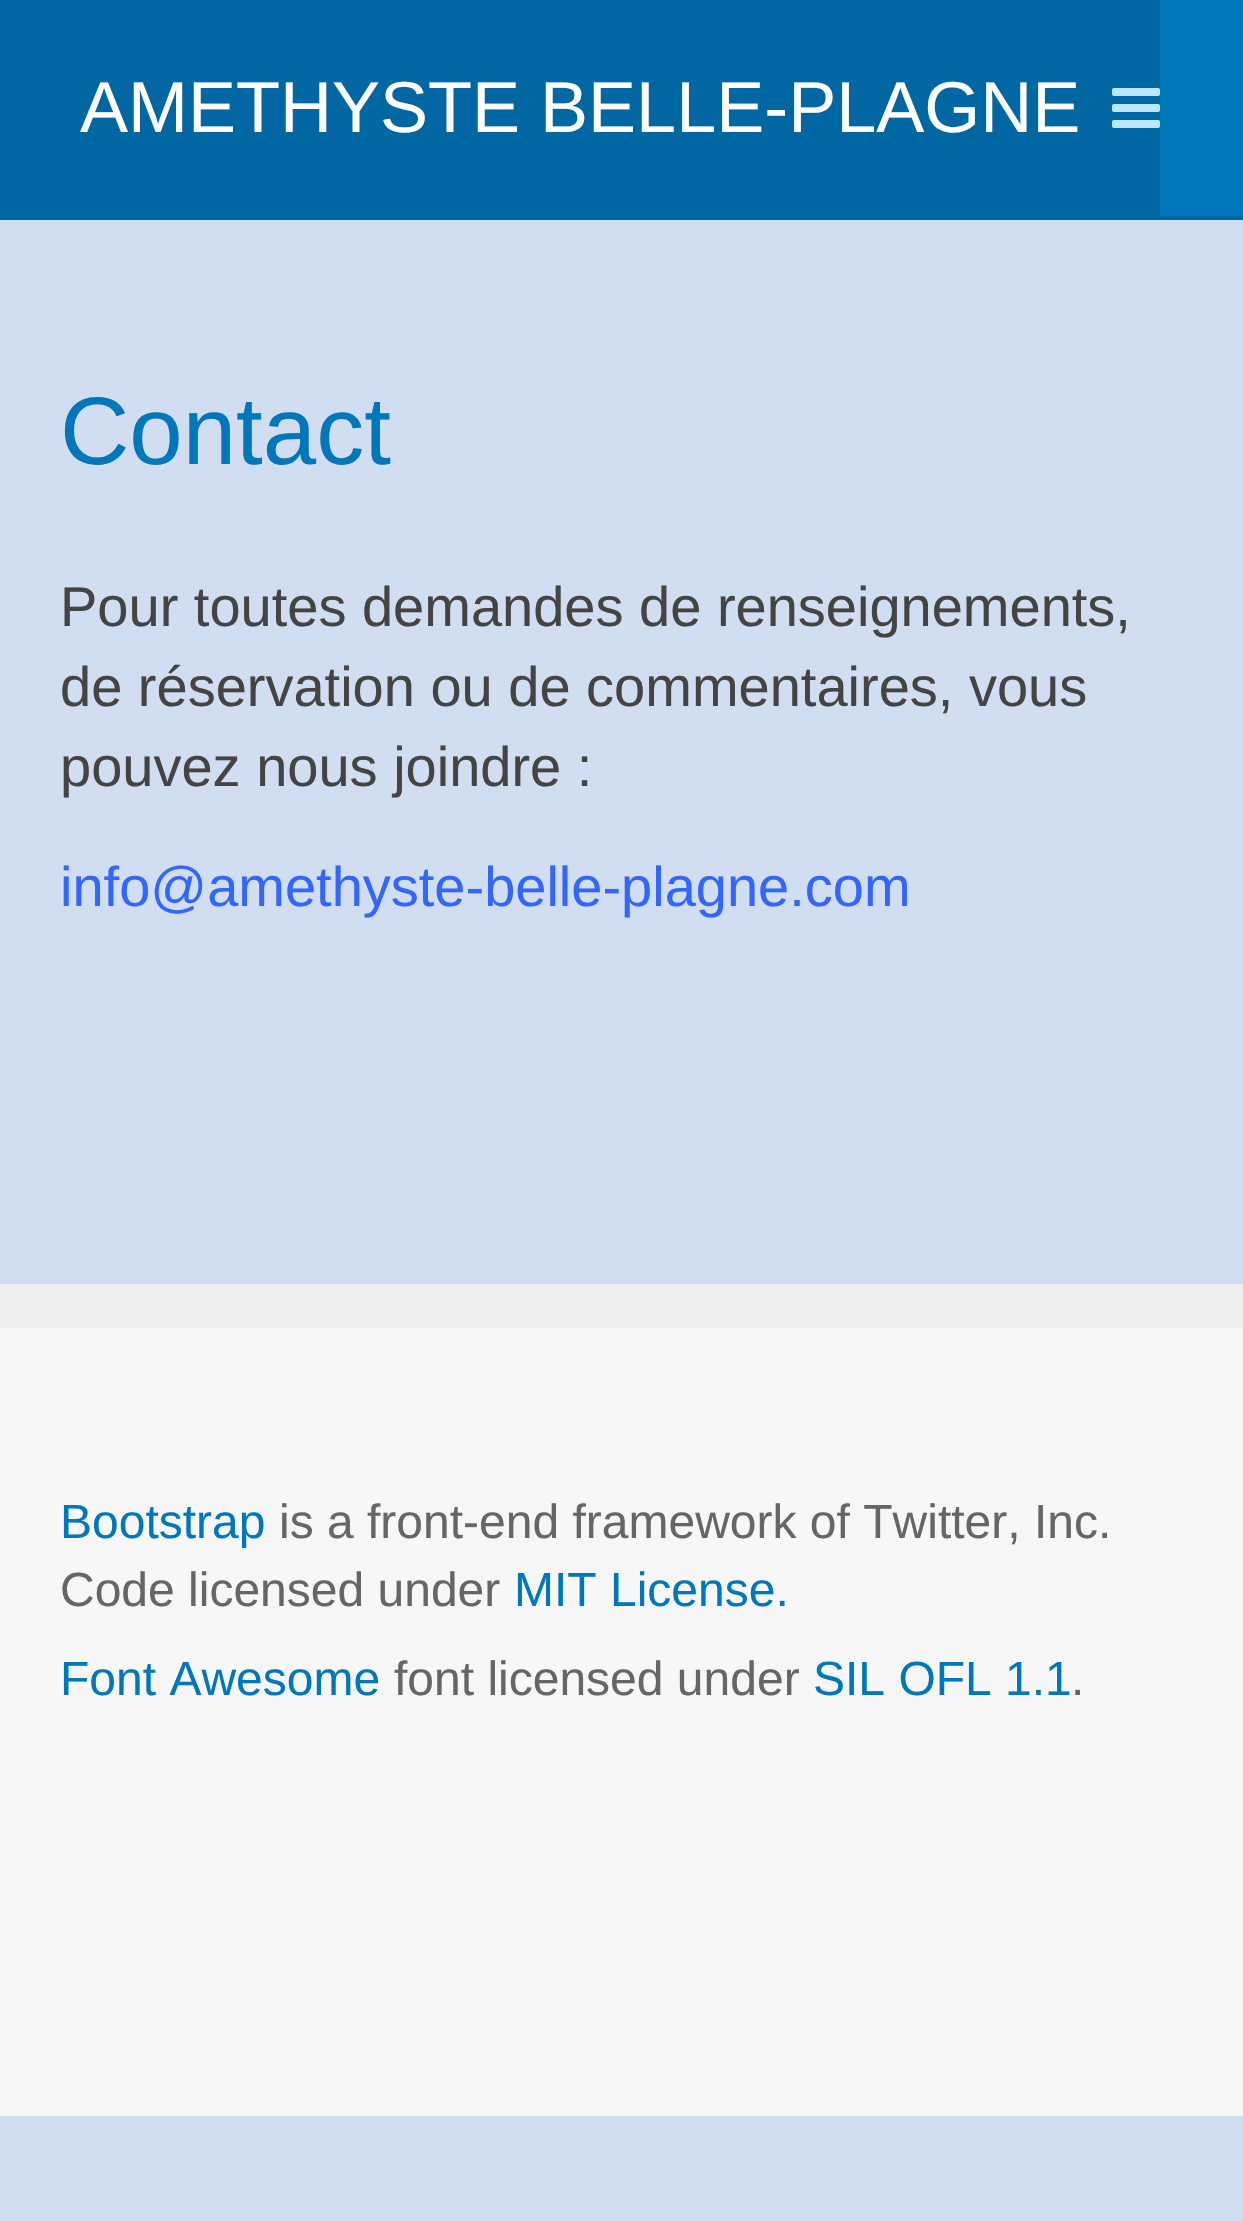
void draw(SkCanvas* canvas) {
    SkPaint paint;
    paint.setAntiAlias(true);
    auto face = [&](const char* family, int weight, float size, bool italic = false) {
        SkFontStyle style(weight, SkFontStyle::kNormal_Width,
            italic ? SkFontStyle::kItalic_Slant : SkFontStyle::kUpright_Slant);
        SkFont result(fontMgr->matchFamilyStyle(family, style), size);
        result.setSubpixel(true);
        return result;
    };
    auto write = [&](const char* s, float x, float y, const SkFont& font, SkColor color) {
        SkPaint ink(SkColor4f::FromColor(color));
        ink.setAntiAlias(true);
        canvas->drawString(s, x, y, font, ink);
    };
    auto block = [&](float x, float y, float w, float h, SkColor color) {
        SkPaint ink(SkColor4f::FromColor(color));
        ink.setAntiAlias(true);
        canvas->drawRect(SkRect::MakeXYWH(x, y, w, h), ink);
    };
    auto paste = [&](const char* path, float x, float y, float w, float h) {
        auto image = SkImages::DeferredFromEncodedData(SkData::MakeFromFileName(path));
        canvas->drawImageRect(image, SkRect::MakeXYWH(x, y, w, h), SkSamplingOptions());
    };
    canvas->clear(SkColorSetRGB(209, 221, 240));
    block(1160, 0, 83, 216, SkColorSetRGB(0, 119, 187));
    block(1160, 216, 83, 4, SkColorSetRGB(0, 103, 162));
    block(0, 0, 1160, 220, SkColorSetRGB(0, 103, 162));
    auto kFont1 = face("Liberation Sans", 400, 72);
    write("AMETHYSTE BELLE-PLAGNE", 80, 132, kFont1, SK_ColorWHITE);
    paste("pic1.png", 1112, 88, 48, 40);
    auto kFont2 = face("Liberation Sans", 400, 96);
    write("Contact", 60, 464, kFont2, SkColorSetRGB(0, 119, 187));
    auto kFont3 = face("Liberation Sans", 400, 56);
    write("Pour toutes demandes de renseignements,", 60, 626, kFont3, SkColorSetRGB(68, 68, 68));
    write("de réservation ou de commentaires, vous", 60, 706, kFont3, SkColorSetRGB(68, 68, 68));
    write("pouvez nous joindre :", 60, 786, kFont3, SkColorSetRGB(68, 68, 68));
    write("info@amethyste-belle-plagne.com", 60, 906, kFont3, SkColorSetRGB(51, 102, 255));
    block(0, 1284, 1243, 44, SkColorSetRGB(238, 238, 238));
    block(0, 1328, 1243, 788, SkColorSetRGB(247, 247, 247));
    auto kFont4 = face("Liberation Sans", 400, 48);
    write("Bootstrap", 60, 1538, kFont4, SkColorSetRGB(0, 119, 187));
    write("is a front-end framework of Twitter, Inc.", 279, 1538, kFont4, SkColorSetRGB(102, 102, 102));
    write("Code licensed under", 60, 1606, kFont4, SkColorSetRGB(102, 102, 102));
    write("MIT License.", 514, 1606, kFont4, SkColorSetRGB(0, 119, 187));
    write("Font Awesome", 60, 1695, kFont4, SkColorSetRGB(0, 119, 187));
    write("font licensed under", 394, 1695, kFont4, SkColorSetRGB(102, 102, 102));
    write("SIL OFL 1.1", 813, 1695, kFont4, SkColorSetRGB(0, 119, 187));
    write(".", 1071, 1695, kFont4, SkColorSetRGB(102, 102, 102));
}
